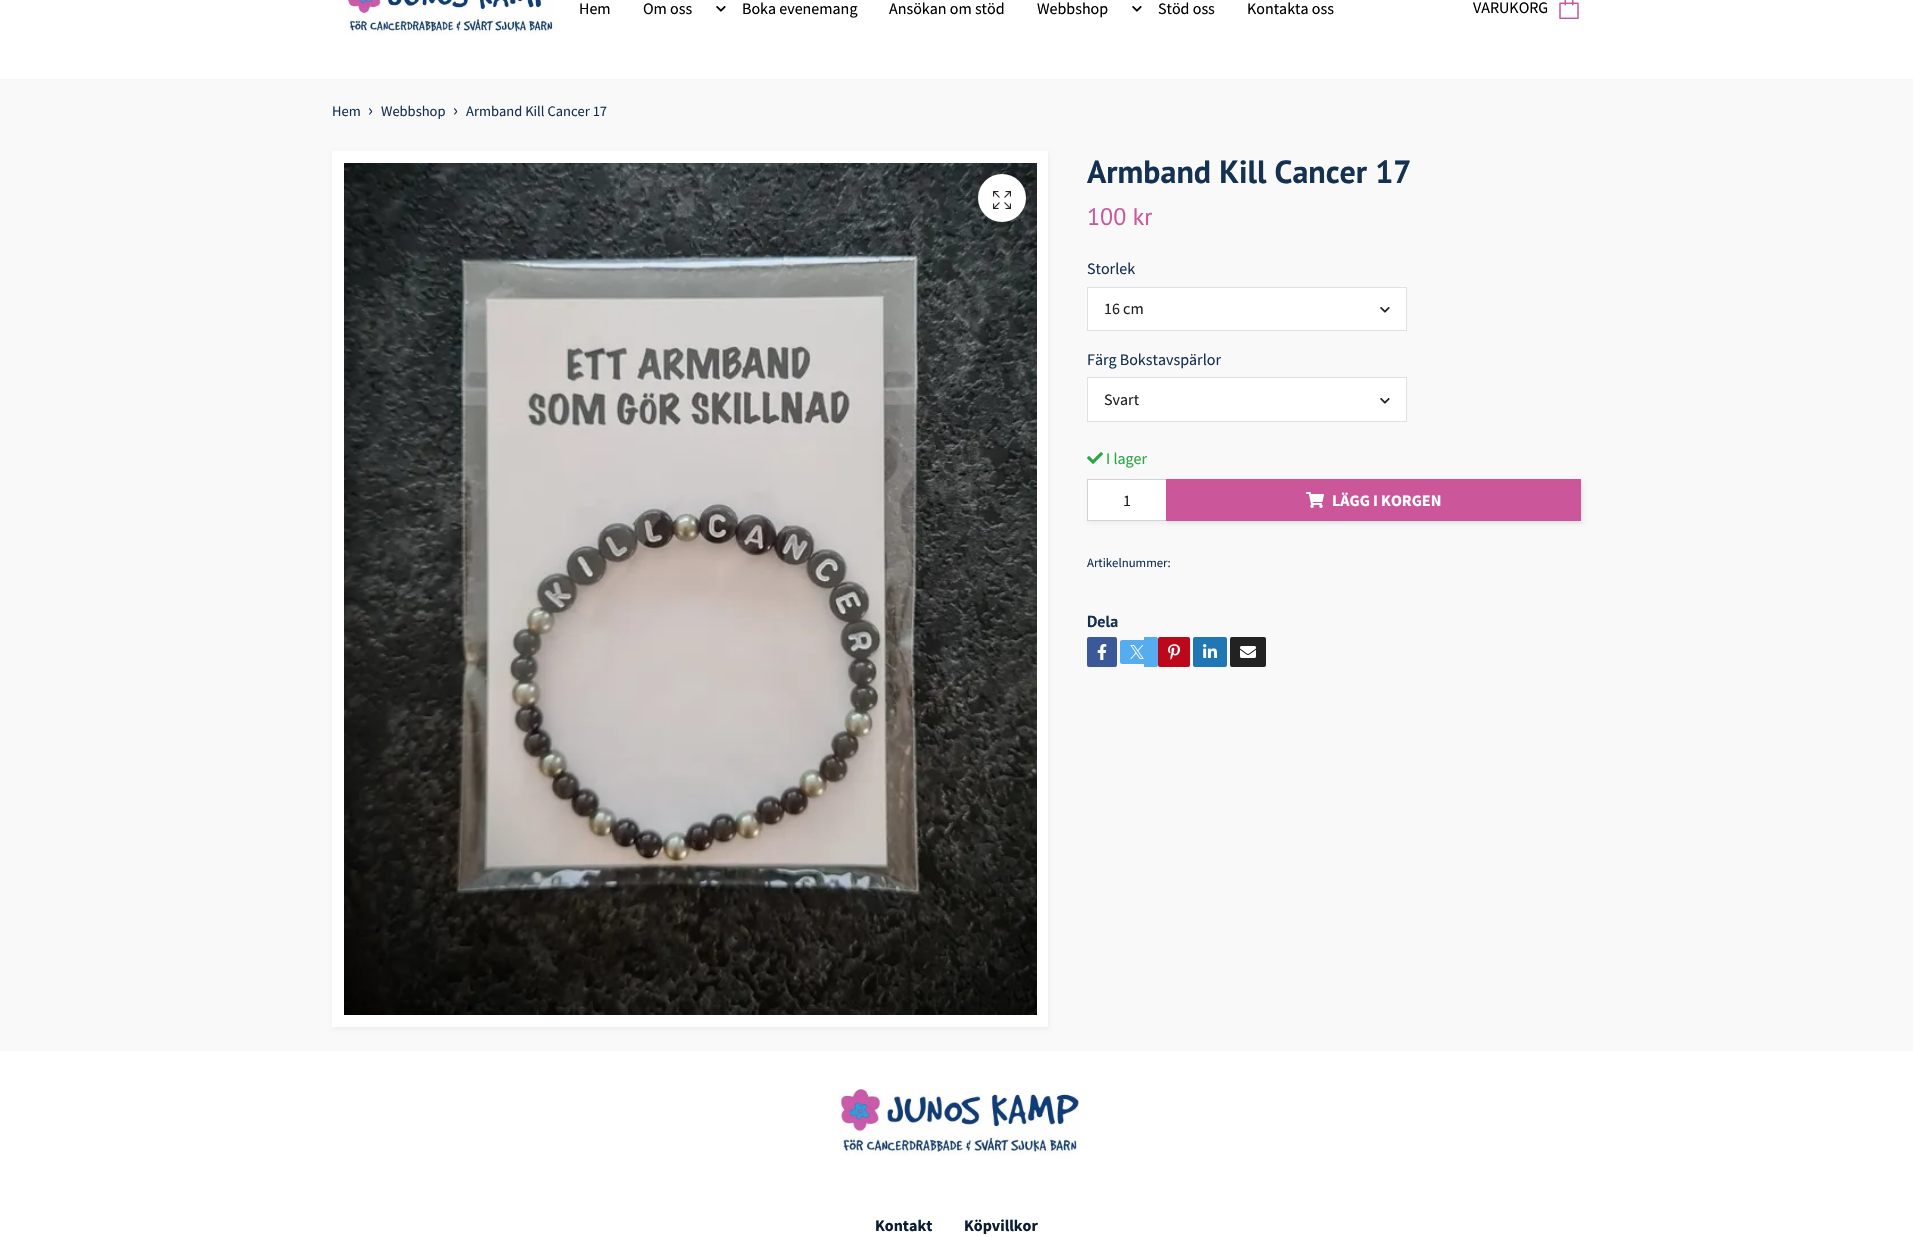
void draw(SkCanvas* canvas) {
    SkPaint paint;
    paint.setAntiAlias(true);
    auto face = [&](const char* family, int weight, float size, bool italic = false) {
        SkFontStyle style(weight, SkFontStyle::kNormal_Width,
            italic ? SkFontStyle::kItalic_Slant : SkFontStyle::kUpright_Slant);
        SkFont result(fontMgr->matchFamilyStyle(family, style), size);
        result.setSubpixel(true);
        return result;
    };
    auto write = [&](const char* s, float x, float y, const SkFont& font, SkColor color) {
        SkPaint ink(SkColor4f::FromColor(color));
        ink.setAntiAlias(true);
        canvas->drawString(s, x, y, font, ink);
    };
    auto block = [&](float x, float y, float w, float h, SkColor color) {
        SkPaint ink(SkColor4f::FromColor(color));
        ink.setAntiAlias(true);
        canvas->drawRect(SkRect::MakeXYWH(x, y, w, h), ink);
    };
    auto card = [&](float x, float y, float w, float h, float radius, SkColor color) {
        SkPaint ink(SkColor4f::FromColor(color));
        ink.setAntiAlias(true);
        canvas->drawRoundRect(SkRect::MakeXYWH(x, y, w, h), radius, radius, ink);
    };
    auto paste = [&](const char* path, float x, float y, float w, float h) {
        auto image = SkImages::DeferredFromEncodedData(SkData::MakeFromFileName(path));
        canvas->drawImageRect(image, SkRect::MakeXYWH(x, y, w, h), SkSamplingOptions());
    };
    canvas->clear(SkColorSetRGB(249, 249, 250));
    block(0, 0, 1913, 79, SK_ColorWHITE);
    paste("pic1.png", 346, 0, 208, 35);
    auto kFont1 = face("Source Sans Pro", 400, 16);
    write("Hem", 579, 14, kFont1, SK_ColorBLACK);
    write("Om oss", 643, 14, kFont1, SK_ColorBLACK);
    paste("pic2.png", 716, 6, 10, 6);
    write("Boka evenemang", 742, 14, kFont1, SK_ColorBLACK);
    write("Ansökan om stöd", 889, 14, kFont1, SK_ColorBLACK);
    write("Webbshop", 1037, 14, kFont1, SK_ColorBLACK);
    paste("pic2.png", 1132, 6, 10, 6);
    write("Stöd oss", 1158, 14, kFont1, SK_ColorBLACK);
    write("Kontakta oss", 1247, 14, kFont1, SK_ColorBLACK);
    write("VARUKORG", 1473, 13, kFont1, SK_ColorBLACK);
    paste("pic3.png", 1559, 0, 20, 19);
    auto kFont2 = face("Source Sans Pro", 400, 14.5f);
    write("Hem", 332, 116, kFont2, SkColorSetRGB(20, 49, 81));
    auto kFont3 = face("Source Sans Pro", 400, 18);
    write("›", 368, 116, kFont3, SkColorSetRGB(20, 49, 81));
    write("Webbshop", 381, 116, kFont2, SkColorSetRGB(20, 49, 81));
    write("›", 453, 116, kFont3, SkColorSetRGB(20, 49, 81));
    write("Armband Kill Cancer 17", 466, 116, kFont2, SkColorSetRGB(20, 49, 81));
    paint.setColor(SkColorSetARGB(13, 0, 0, 0));
    paint.setMaskFilter(SkMaskFilter::MakeBlur(kNormal_SkBlurStyle, 2));
    canvas->drawRect(SkRect::MakeXYWH(333, 153, 716, 876), paint);
    paint.setMaskFilter(nullptr);
    block(332, 151, 716, 876, SK_ColorWHITE);
    paste("pic4.png", 344, 163, 693, 852);
    paint.setColor(SK_ColorWHITE);
    canvas->drawCircle(1002, 198, 24, paint);
    paste("pic5.png", 993, 191, 18, 18);
    auto kFont4 = face("PT Sans", 700, 32);
    write("Armband Kill Cancer 17", 1087, 183, kFont4, SkColorSetRGB(20, 49, 81));
    auto kFont5 = face("PT Sans", 400, 24);
    write("100 kr", 1087, 225, kFont5, SkColorSetRGB(204, 86, 154));
    write("Storlek", 1087, 274, kFont1, SkColorSetRGB(20, 49, 81));
    canvas->drawRect(SkRect::MakeXYWH(1087.5f, 287.5f, 319, 43), paint);
    paint.setStyle(SkPaint::kStroke_Style);
    paint.setStrokeWidth(1);
    paint.setColor(SkColorSetRGB(222, 226, 230));
    canvas->drawRect(SkRect::MakeXYWH(1087.5f, 287.5f, 319, 43), paint);
    write("16 cm", 1104, 314, kFont1, SkColorSetRGB(34, 34, 34));
    paste("pic6.png", 1380, 307, 10, 6);
    write("Färg Bokstavspärlor", 1087, 365, kFont1, SkColorSetRGB(20, 49, 81));
    paint.setStyle(SkPaint::kFill_Style);
    paint.setColor(SK_ColorWHITE);
    canvas->drawRect(SkRect::MakeXYWH(1087.5f, 377.5f, 319, 44), paint);
    paint.setStyle(SkPaint::kStroke_Style);
    paint.setColor(SkColorSetRGB(222, 226, 230));
    canvas->drawRect(SkRect::MakeXYWH(1087.5f, 377.5f, 319, 44), paint);
    write("Svart", 1104, 405, kFont1, SkColorSetRGB(34, 34, 34));
    paste("pic6.png", 1380, 398, 10, 6);
    paste("pic7.png", 1087, 452, 16, 12);
    write("I lager", 1106, 464, kFont1, SkColorSetRGB(40, 167, 69));
    paint.setStyle(SkPaint::kFill_Style);
    paint.setColor(SkColorSetARGB(13, 0, 0, 0));
    paint.setMaskFilter(SkMaskFilter::MakeBlur(kNormal_SkBlurStyle, 2));
    canvas->drawRect(SkRect::MakeXYWH(1088, 481, 494, 42), paint);
    paint.setMaskFilter(nullptr);
    paint.setColor(SK_ColorWHITE);
    canvas->drawRect(SkRect::MakeXYWH(1087.5f, 479.5f, 79, 41), paint);
    paint.setStyle(SkPaint::kStroke_Style);
    paint.setColor(SkColorSetRGB(206, 212, 218));
    canvas->drawRect(SkRect::MakeXYWH(1087.5f, 479.5f, 79, 41), paint);
    write("1", 1123, 506, kFont1, SkColorSetRGB(34, 34, 34));
    paint.setStyle(SkPaint::kFill_Style);
    paint.setColor(SkColorSetARGB(13, 0, 0, 0));
    paint.setMaskFilter(SkMaskFilter::MakeBlur(kNormal_SkBlurStyle, 2));
    canvas->drawRect(SkRect::MakeXYWH(1167, 481, 415, 42), paint);
    paint.setMaskFilter(nullptr);
    block(1166, 479, 415, 42, SkColorSetRGB(204, 86, 154));
    paste("pic8.png", 1306, 492, 18, 16);
    auto kFont6 = face("Source Sans Pro", 700, 16);
    write("LÄGG I KORGEN", 1332, 506, kFont6, SK_ColorWHITE);
    auto kFont7 = face("Source Sans Pro", 400, 12.75f);
    write("Artikelnummer:", 1087, 567, kFont7, SkColorSetRGB(20, 49, 81));
    auto kFont8 = face("PT Sans", 700, 16);
    write("Dela", 1087, 627, kFont8, SkColorSetRGB(20, 49, 81));
    card(1087, 637, 30, 30, 2, SkColorSetRGB(59, 89, 152));
    paste("pic9.png", 1097, 644, 10, 16);
    paint.setColor(SkColorSetRGB(85, 172, 238));
    canvas->drawPath(SkPathBuilder().moveTo(1122, 640).lineTo(1144, 640).lineTo(1144, 664).lineTo(1122, 664).cubicTo(1121, 664, 1120, 663, 1120, 662).lineTo(1120, 642).cubicTo(1120, 641, 1121, 640, 1122, 640).close().detach(), paint);
    canvas->drawPath(SkPathBuilder().moveTo(1144, 637).lineTo(1156, 637).cubicTo(1157, 637, 1158, 638, 1158, 639).lineTo(1158, 665).cubicTo(1158, 666, 1157, 667, 1156, 667).lineTo(1144, 667).close().detach(), paint);
    card(1158, 637, 32, 30, 2, SkColorSetRGB(189, 8, 28));
    paste("pic10.png", 1168, 644, 12, 16);
    card(1193, 637, 34, 30, 2, SkColorSetRGB(33, 119, 180));
    paste("pic11.png", 1203, 644, 14, 14);
    card(1230, 637, 36, 30, 2, SkColorSetRGB(34, 34, 34));
    paste("pic12.png", 1240, 646, 16, 12);
    paste("pic13.png", 1130, 645, 14, 14);
    block(0, 1051, 1913, 186, SK_ColorWHITE);
    paste("pic14.png", 839, 1088, 240, 67);
    write("Kontakt", 875, 1231, kFont6, SkColorSetRGB(10, 29, 50));
    write("Köpvillkor", 964, 1231, kFont6, SkColorSetRGB(10, 29, 50));
}
